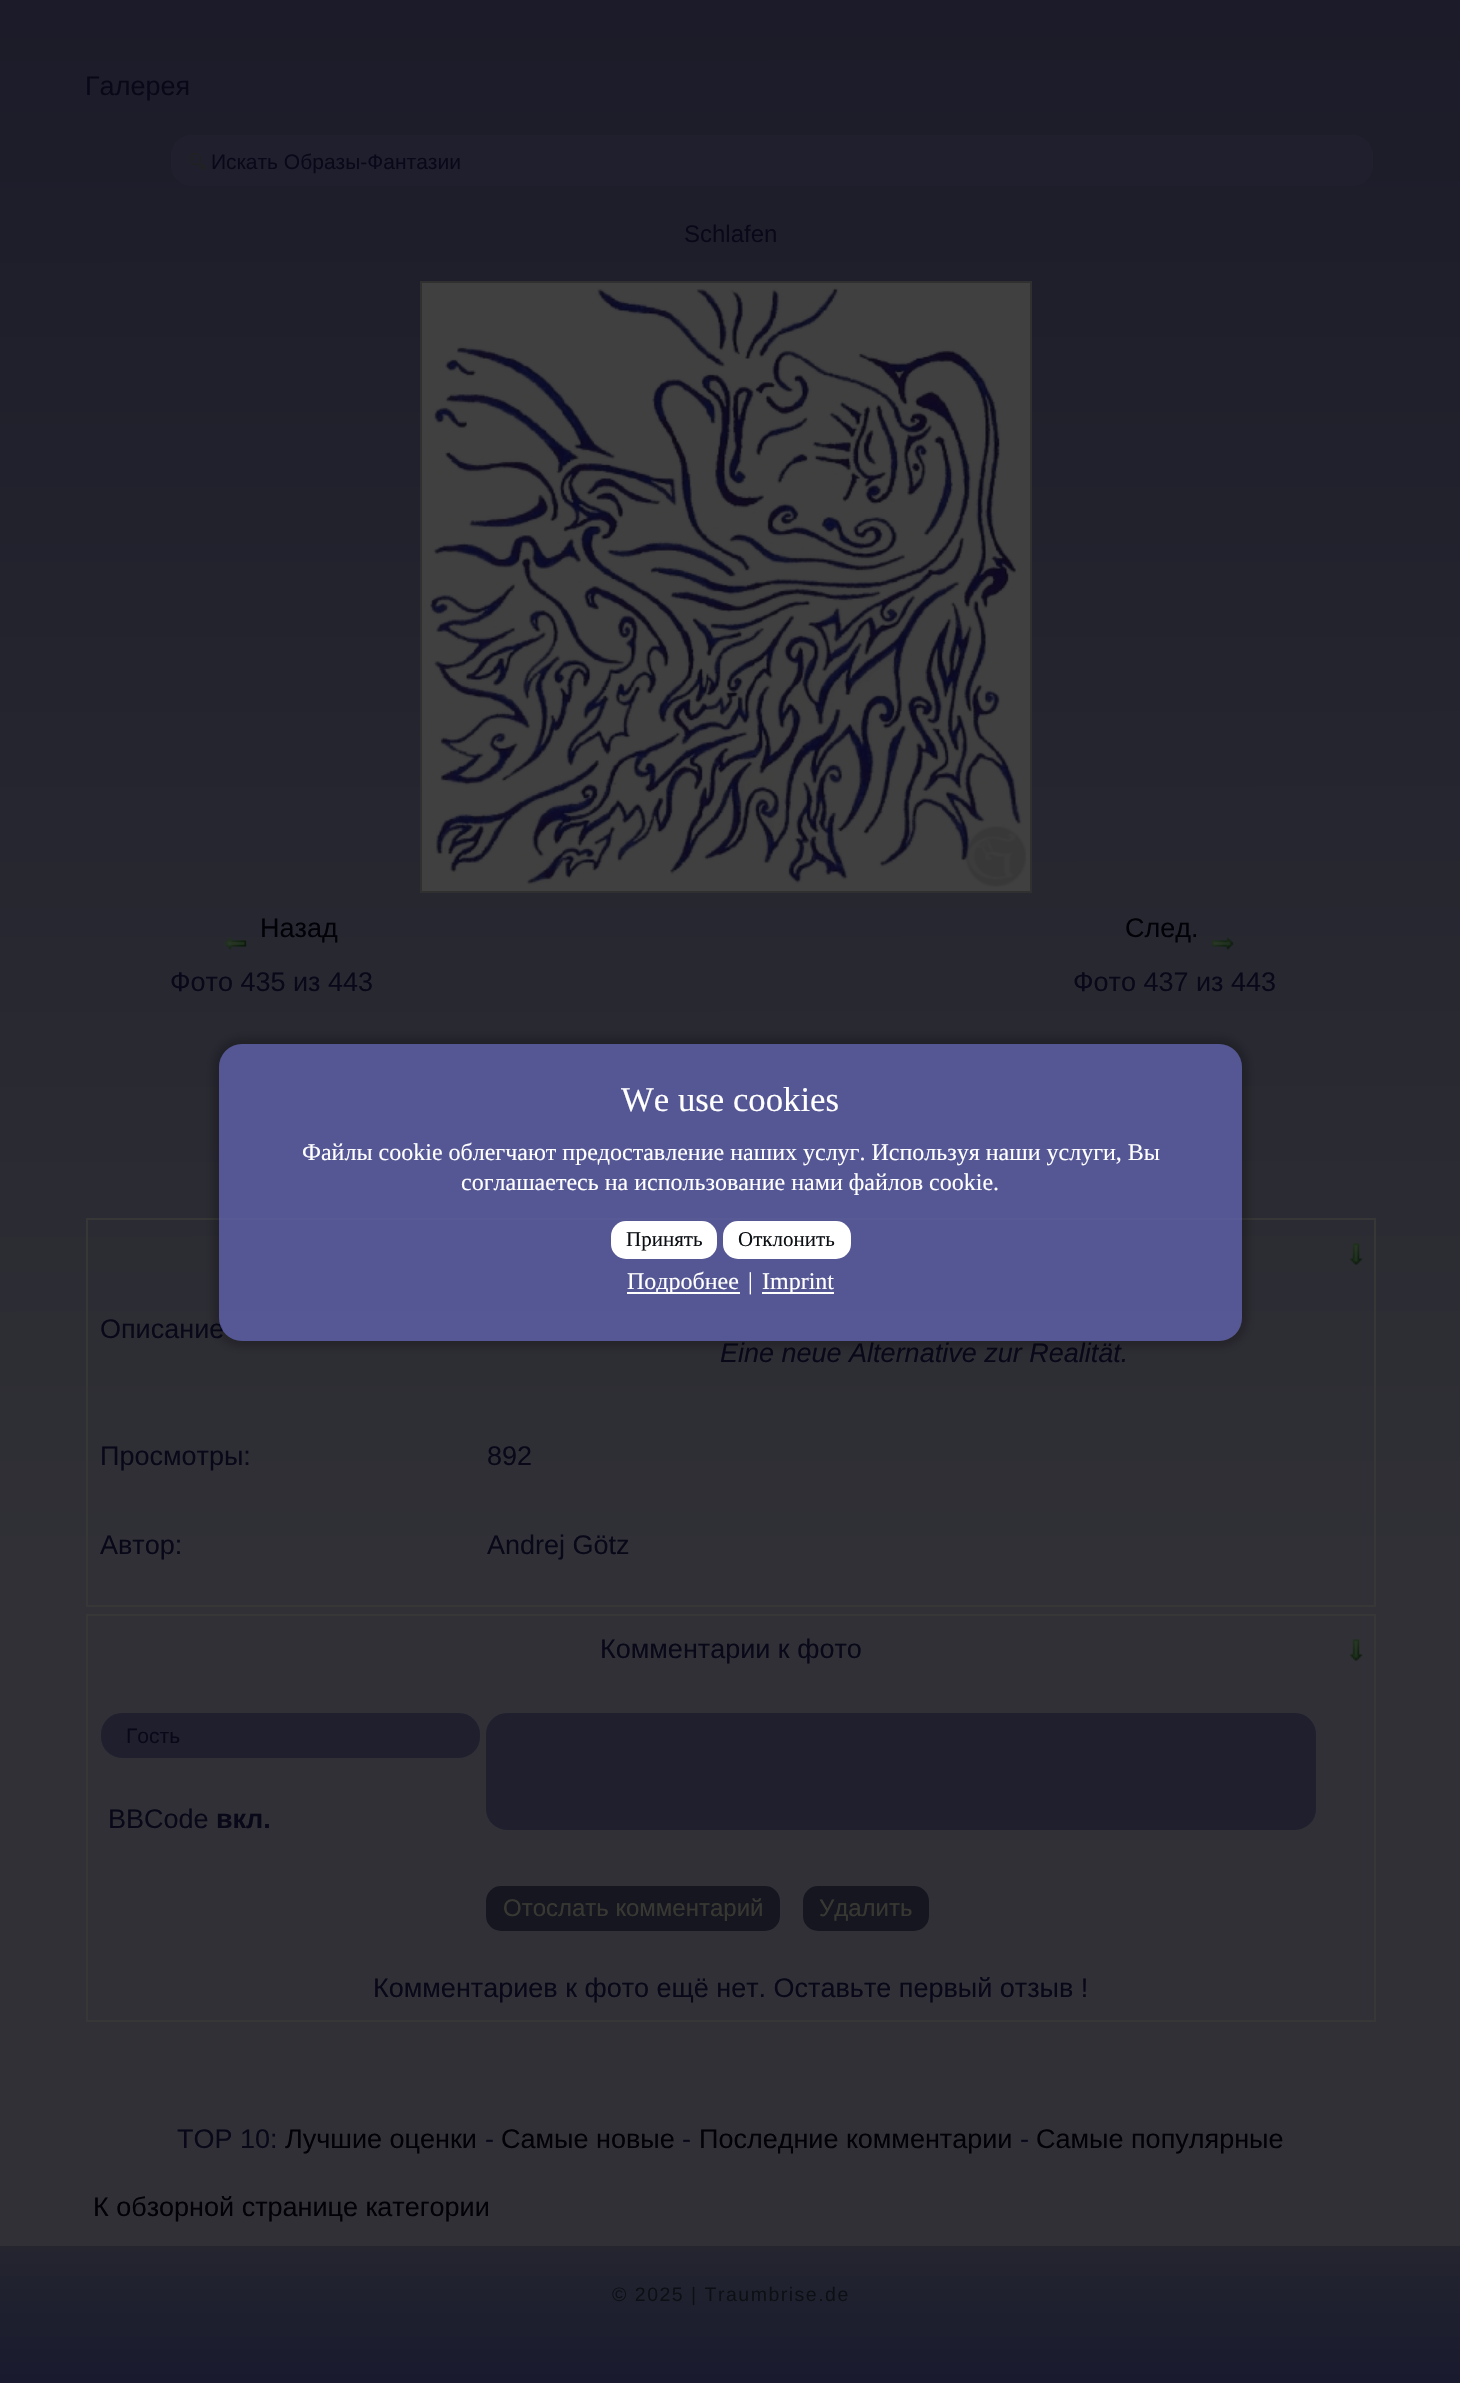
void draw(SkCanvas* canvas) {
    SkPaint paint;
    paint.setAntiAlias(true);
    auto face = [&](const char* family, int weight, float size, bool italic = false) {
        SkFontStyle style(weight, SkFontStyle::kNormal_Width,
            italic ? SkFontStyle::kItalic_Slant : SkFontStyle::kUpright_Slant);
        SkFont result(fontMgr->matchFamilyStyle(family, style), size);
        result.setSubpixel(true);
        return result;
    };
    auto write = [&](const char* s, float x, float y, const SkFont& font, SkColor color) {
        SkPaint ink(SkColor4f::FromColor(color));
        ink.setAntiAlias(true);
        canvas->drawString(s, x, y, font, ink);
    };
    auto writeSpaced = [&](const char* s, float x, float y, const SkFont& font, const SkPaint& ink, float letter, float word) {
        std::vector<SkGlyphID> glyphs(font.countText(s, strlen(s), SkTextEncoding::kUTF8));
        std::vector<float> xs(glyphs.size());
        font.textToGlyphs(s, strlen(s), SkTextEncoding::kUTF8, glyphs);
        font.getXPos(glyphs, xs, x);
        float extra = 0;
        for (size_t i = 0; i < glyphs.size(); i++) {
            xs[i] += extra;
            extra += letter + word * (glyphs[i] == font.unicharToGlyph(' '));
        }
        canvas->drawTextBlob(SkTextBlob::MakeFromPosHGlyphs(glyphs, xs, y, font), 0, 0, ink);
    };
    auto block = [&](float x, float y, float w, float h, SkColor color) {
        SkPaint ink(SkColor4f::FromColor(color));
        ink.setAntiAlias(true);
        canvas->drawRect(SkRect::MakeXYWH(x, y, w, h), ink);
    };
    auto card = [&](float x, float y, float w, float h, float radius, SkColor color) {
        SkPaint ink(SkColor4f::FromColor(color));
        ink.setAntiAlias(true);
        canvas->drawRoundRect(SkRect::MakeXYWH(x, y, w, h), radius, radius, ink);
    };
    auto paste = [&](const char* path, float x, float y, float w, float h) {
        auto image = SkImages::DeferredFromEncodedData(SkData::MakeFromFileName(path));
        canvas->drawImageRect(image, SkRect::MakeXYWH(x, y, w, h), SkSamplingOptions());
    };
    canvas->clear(SK_ColorWHITE);
    {
        const SkColor colors[] = {SkColorSetRGB(27, 27, 41), SkColorSetRGB(48, 48, 54)};
        const float stops[] = {0, 0.66f};
        const SkPoint ends[] = {{730, 0}, {731, 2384}};
        paint.setShader(SkGradientShader::MakeLinear(ends, colors, stops, 2, SkTileMode::kClamp));
        paint.setAlpha(255);
    }
    canvas->drawRect(SkRect::MakeXYWH(0, 0, 1460, 2246), paint);
    auto kFont1 = face("Liberation Sans", 400, 27);
    write("Галерея", 85, 95, kFont1, SkColorSetRGB(8, 8, 25));
    card(171, 135, 1202, 51, 21, SkColorSetRGB(31, 31, 46));
    paste("pic1.png", 189, 153, 17, 17);
    auto kFont2 = face("Liberation Sans", 400, 21);
    write("Искать Образы-Фантазии", 211, 169, kFont2, SkColorSetRGB(8, 8, 25));
    auto kFont3 = face("Liberation Sans", 400, 24);
    write("Schlafen", 684, 242, kFont3, SkColorSetRGB(8, 8, 25));
    paint.setShader(nullptr);
    paint.setColor(SkColorSetRGB(64, 64, 64));
    canvas->drawRect(SkRect::MakeXYWH(421, 282, 610, 610), paint);
    paint.setStyle(SkPaint::kStroke_Style);
    paint.setStrokeWidth(2);
    paint.setColor(SkColorSetRGB(48, 48, 48));
    canvas->drawRect(SkRect::MakeXYWH(421, 282, 610, 610), paint);
    paste("pic2.png", 430, 287, 596, 600);
    paste("pic3.png", 224, 937, 23, 13);
    write("Назад", 260, 937, kFont1, SkColorSetRGB(1, 1, 7));
    write("Фото 435 из 443", 170, 991, kFont1, SkColorSetRGB(8, 8, 25));
    write("След.", 1125, 937, kFont1, SkColorSetRGB(1, 1, 7));
    paste("pic4.png", 1211, 937, 23, 13);
    write("Фото 437 из 443", 1073, 991, kFont1, SkColorSetRGB(8, 8, 25));
    paint.setColor(SkColorSetRGB(55, 55, 55));
    canvas->drawRect(SkRect::MakeXYWH(87, 1219, 1288, 387), paint);
    paste("pic5.png", 1349, 1243, 14, 22);
    write("Описание", 100, 1338, kFont1, SkColorSetRGB(8, 8, 25));
    auto kFont4 = face("Liberation Sans", 400, 27, true);
    write("Eine neue Alternative zur Realität.", 720, 1362, kFont4, SkColorSetRGB(8, 8, 25));
    write("Просмотры:", 100, 1465, kFont1, SkColorSetRGB(8, 8, 25));
    write("892", 487, 1465, kFont1, SkColorSetRGB(8, 8, 25));
    write("Автор:", 100, 1554, kFont1, SkColorSetRGB(8, 8, 25));
    write("Andrej Götz", 487, 1554, kFont1, SkColorSetRGB(8, 8, 25));
    canvas->drawRect(SkRect::MakeXYWH(87, 1615, 1288, 406), paint);
    paste("pic6.png", 1349, 1639, 14, 22);
    write("Комментарии к фото", 600, 1658, kFont1, SkColorSetRGB(8, 8, 25));
    paint.setStyle(SkPaint::kFill_Style);
    paint.setColor(SkColorSetRGB(31, 31, 46));
    canvas->drawRoundRect(SkRect::MakeXYWH(106.5f, 1718.5f, 368, 34), 15.5f, 15.5f, paint);
    paint.setStyle(SkPaint::kStroke_Style);
    paint.setStrokeWidth(11);
    canvas->drawRoundRect(SkRect::MakeXYWH(106.5f, 1718.5f, 368, 34), 15.5f, 15.5f, paint);
    write("Гость", 126, 1743, kFont2, SkColorSetRGB(8, 8, 25));
    write("BBCode", 108, 1828, kFont1, SkColorSetRGB(8, 8, 25));
    auto kFont5 = face("Liberation Sans", 700, 27);
    write("вкл.", 216, 1828, kFont5, SkColorSetRGB(8, 8, 25));
    paint.setStyle(SkPaint::kFill_Style);
    canvas->drawRoundRect(SkRect::MakeXYWH(491.5f, 1718.5f, 819, 106), 15.5f, 15.5f, paint);
    paint.setStyle(SkPaint::kStroke_Style);
    canvas->drawRoundRect(SkRect::MakeXYWH(491.5f, 1718.5f, 819, 106), 15.5f, 15.5f, paint);
    paint.setStyle(SkPaint::kFill_Style);
    paint.setColor(SkColorSetRGB(22, 22, 32));
    canvas->drawRoundRect(SkRect::MakeXYWH(490, 1890, 286, 37), 11, 11, paint);
    paint.setStyle(SkPaint::kStroke_Style);
    paint.setStrokeWidth(8);
    canvas->drawRoundRect(SkRect::MakeXYWH(490, 1890, 286, 37), 11, 11, paint);
    write("Отослать комментарий", 503, 1916, kFont3, SkColorSetRGB(56, 56, 51));
    paint.setStyle(SkPaint::kFill_Style);
    canvas->drawRoundRect(SkRect::MakeXYWH(807, 1890, 118, 37), 11, 11, paint);
    paint.setStyle(SkPaint::kStroke_Style);
    canvas->drawRoundRect(SkRect::MakeXYWH(807, 1890, 118, 37), 11, 11, paint);
    write("Удалить", 819, 1916, kFont3, SkColorSetRGB(56, 56, 51));
    write("Комментариев к фото ещё нет. Оставьте первый отзыв !", 373, 1997, kFont1, SkColorSetRGB(8, 8, 25));
    write("TOP 10:", 177, 2148, kFont1, SkColorSetRGB(8, 8, 25));
    write("Лучшие оценки", 285, 2148, kFont1, SkColorSetRGB(1, 1, 7));
    write("-", 485, 2148, kFont1, SkColorSetRGB(8, 8, 25));
    write("Самые новые", 501, 2148, kFont1, SkColorSetRGB(1, 1, 7));
    write("-", 682, 2148, kFont1, SkColorSetRGB(8, 8, 25));
    write("Последние комментарии", 699, 2148, kFont1, SkColorSetRGB(1, 1, 7));
    write("-", 1020, 2148, kFont1, SkColorSetRGB(8, 8, 25));
    write("Самые популярные", 1036, 2148, kFont1, SkColorSetRGB(1, 1, 7));
    write("К обзорной странице категории", 93, 2216, kFont1, SkColorSetRGB(1, 1, 7));
    paint.setStyle(SkPaint::kFill_Style);
    {
        const SkColor colors[] = {SkColorSetRGB(36, 37, 47), SkColorSetRGB(25, 26, 46), SkColorSetRGB(25, 26, 46)};
        const float stops[] = {0, 0.97f, 1};
        const SkPoint ends[] = {{731, 2246}, {731, 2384}};
        paint.setShader(SkGradientShader::MakeLinear(ends, colors, stops, 3, SkTileMode::kClamp));
        paint.setAlpha(255);
    }
    canvas->drawRect(SkRect::MakeXYWH(0, 2246, 1460, 137), paint);
    auto kFont6 = face("Liberation Sans", 400, 19.5f);
    paint.setShader(nullptr);
    paint.setColor(SkColorSetRGB(12, 16, 20));
    writeSpaced("© 2025 | Traumbrise.de", 612, 2301, kFont6, paint, 1.5f, 0);
    canvas->save();
    canvas->clipPath(SkPathBuilder(SkPathFillType::kEvenOdd).moveTo(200, 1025).lineTo(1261, 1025).lineTo(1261, 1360).lineTo(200, 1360).close().moveTo(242, 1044).lineTo(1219, 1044).cubicTo(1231.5f, 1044, 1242, 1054.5f, 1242, 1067).lineTo(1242, 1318).cubicTo(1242, 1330.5f, 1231.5f, 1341, 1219, 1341).lineTo(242, 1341).cubicTo(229.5f, 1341, 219, 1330.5f, 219, 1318).lineTo(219, 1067).cubicTo(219, 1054.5f, 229.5f, 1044, 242, 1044).close().detach(), true);
    paint.setColor(SkColorSetARGB(54, 0, 0, 0));
    paint.setMaskFilter(SkMaskFilter::MakeBlur(kNormal_SkBlurStyle, 4));
    canvas->drawRoundRect(SkRect::MakeXYWH(213, 1038, 1035, 309), 29, 29, paint);
    paint.setMaskFilter(nullptr);
    canvas->restore();
    card(219, 1044, 1023, 297, 23, SkColorSetARGB(191, 99, 102, 182));
    auto kFont7 = face("Liberation Serif", 400, 34.75f);
    write("We use cookies", 621, 1111, kFont7, SK_ColorWHITE);
    auto kFont8 = face("Liberation Serif", 400, 24);
    write("Файлы cookie облегчают предоставление наших услуг. Используя наши услуги, Вы", 302, 1160, kFont8, SK_ColorWHITE);
    write("соглашаетесь на использование нами файлов cookie.", 461, 1190, kFont8, SK_ColorWHITE);
    card(611, 1221, 106, 38, 15, SK_ColorWHITE);
    auto kFont9 = face("Liberation Serif", 400, 21);
    write("Принять", 626, 1246, kFont9, SkColorSetRGB(12, 16, 20));
    card(723, 1221, 128, 38, 15, SK_ColorWHITE);
    write("Отклонить", 738, 1246, kFont9, SkColorSetRGB(12, 16, 20));
    block(627, 1292, 113, 2, SK_ColorWHITE);
    write("Подробнее", 627, 1289, kFont8, SK_ColorWHITE);
    write("|", 748, 1289, kFont8, SK_ColorWHITE);
    block(762, 1292, 72, 2, SK_ColorWHITE);
    write("Imprint", 762, 1289, kFont8, SK_ColorWHITE);
}
